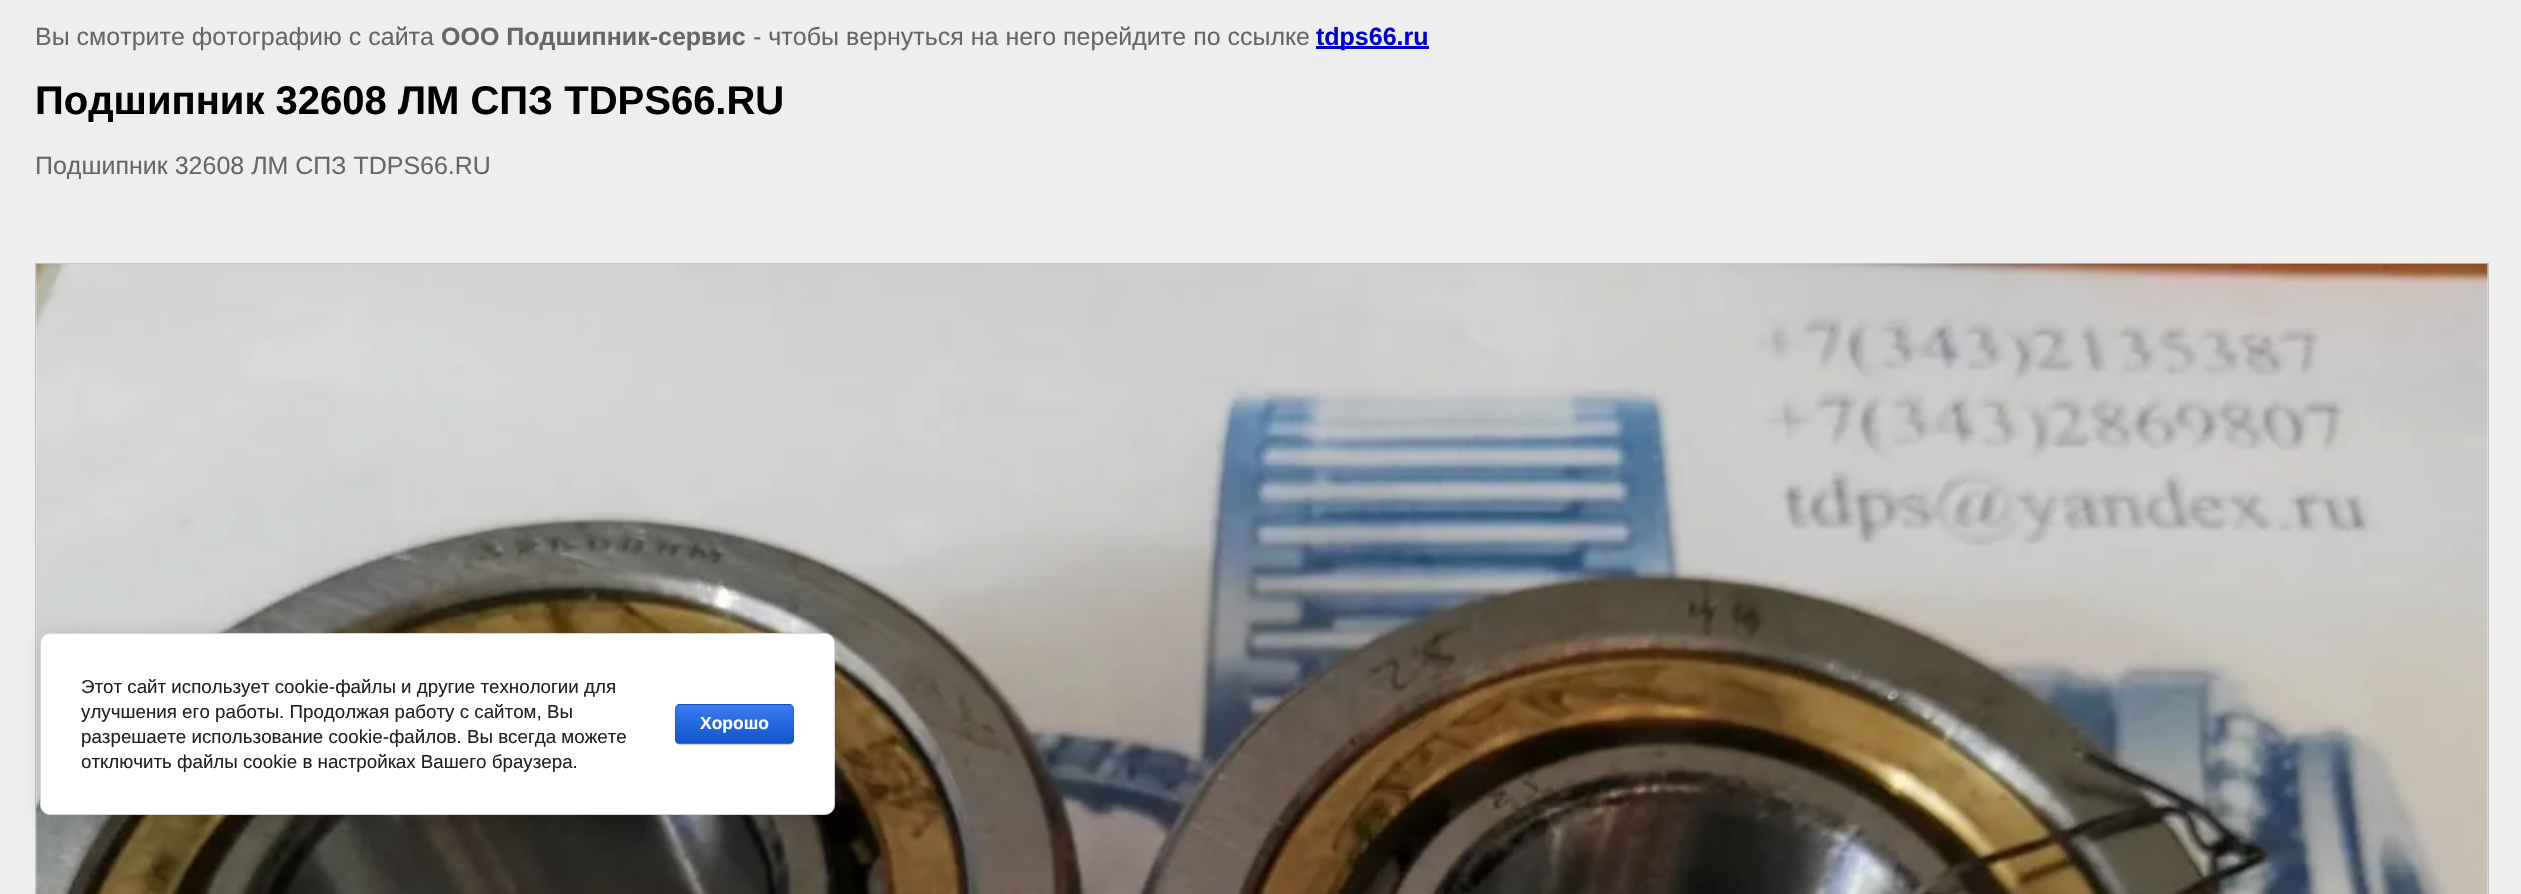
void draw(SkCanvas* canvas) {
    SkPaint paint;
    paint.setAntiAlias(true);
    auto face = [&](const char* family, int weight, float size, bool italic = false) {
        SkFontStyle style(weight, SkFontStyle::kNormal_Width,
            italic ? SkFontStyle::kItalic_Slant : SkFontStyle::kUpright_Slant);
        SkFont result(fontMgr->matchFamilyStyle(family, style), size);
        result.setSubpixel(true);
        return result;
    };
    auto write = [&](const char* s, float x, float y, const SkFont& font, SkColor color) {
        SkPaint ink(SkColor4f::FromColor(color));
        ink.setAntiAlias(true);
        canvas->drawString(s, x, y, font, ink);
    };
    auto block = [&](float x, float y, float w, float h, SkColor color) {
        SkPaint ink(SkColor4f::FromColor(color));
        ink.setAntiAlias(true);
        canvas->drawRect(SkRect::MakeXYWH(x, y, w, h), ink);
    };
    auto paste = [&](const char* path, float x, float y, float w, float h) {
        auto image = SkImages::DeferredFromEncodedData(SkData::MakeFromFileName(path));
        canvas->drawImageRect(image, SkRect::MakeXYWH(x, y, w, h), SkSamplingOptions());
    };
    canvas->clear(SkColorSetRGB(238, 238, 238));
    auto kFont1 = face("Liberation Sans", 400, 25);
    write("Вы смотрите фотографию с сайта", 35, 45, kFont1, SkColorSetRGB(102, 102, 102));
    auto kFont2 = face("Liberation Sans", 700, 25);
    write("ООО Подшипник-сервис", 441, 45, kFont2, SkColorSetRGB(102, 102, 102));
    write("- чтобы вернуться на него перейдите по ссылке", 753, 45, kFont1, SkColorSetRGB(102, 102, 102));
    block(1316, 46, 113, 3, SkColorSetRGB(0, 0, 204));
    write("tdps66.ru", 1316, 45, kFont2, SkColorSetRGB(0, 0, 204));
    auto kFont3 = face("Liberation Sans", 700, 40);
    write("Подшипник 32608 ЛМ СПЗ TDPS66.RU", 35, 114, kFont3, SK_ColorBLACK);
    write("Подшипник 32608 ЛМ СПЗ TDPS66.RU", 35, 174, kFont1, SkColorSetRGB(102, 102, 102));
    paint.setStyle(SkPaint::kStroke_Style);
    paint.setStrokeWidth(1);
    paint.setColor(SkColorSetRGB(192, 192, 192));
    canvas->drawRect(SkRect::MakeXYWH(35.5f, 263.5f, 2453, 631), paint);
    paste("pic1.png", 36, 263, 2452, 631);
    paint.setStyle(SkPaint::kFill_Style);
    paint.setColor(SkColorSetARGB(36, 0, 0, 0));
    paint.setMaskFilter(SkMaskFilter::MakeBlur(kNormal_SkBlurStyle, 11));
    canvas->drawRoundRect(SkRect::MakeXYWH(43, 635, 795, 183), 10, 10, paint);
    paint.setMaskFilter(nullptr);
    paint.setColor(SK_ColorWHITE);
    canvas->drawRoundRect(SkRect::MakeXYWH(40.5f, 633.5f, 794, 181), 9.5f, 9.5f, paint);
    paint.setStyle(SkPaint::kStroke_Style);
    paint.setColor(SkColorSetRGB(214, 214, 214));
    canvas->drawRoundRect(SkRect::MakeXYWH(40.5f, 633.5f, 794, 181), 9.5f, 9.5f, paint);
    auto kFont4 = face("Liberation Sans", 400, 18.75f);
    write("Этот сайт использует cookie-файлы и другие технологии для", 81, 693, kFont4, SkColorSetRGB(33, 33, 33));
    write("улучшения его работы. Продолжая работу с сайтом, Вы", 81, 718, kFont4, SkColorSetRGB(33, 33, 33));
    write("разрешаете использование cookie-файлов. Вы всегда можете", 81, 743, kFont4, SkColorSetRGB(33, 33, 33));
    write("отключить файлы cookie в настройках Вашего браузера.", 81, 768, kFont4, SkColorSetRGB(33, 33, 33));
    paint.setStyle(SkPaint::kFill_Style);
    paint.setColor(SkColorSetARGB(51, 0, 0, 0));
    paint.setMaskFilter(SkMaskFilter::MakeBlur(kNormal_SkBlurStyle, 0.5f));
    canvas->drawRoundRect(SkRect::MakeXYWH(675, 705, 119, 40), 5, 5, paint);
    paint.setMaskFilter(nullptr);
    canvas->save();
    canvas->clipPath(SkPathBuilder().moveTo(680, 704).lineTo(789, 704).cubicTo(792, 704, 794, 706, 794, 709).lineTo(794, 739).cubicTo(794, 742, 792, 744, 789, 744).lineTo(680, 744).cubicTo(677, 744, 675, 742, 675, 739).lineTo(675, 709).cubicTo(675, 706, 677, 704, 680, 704).close().detach(), true);
    {
        const SkColor colors[] = {SkColorSetRGB(59, 124, 239), SkColorSetRGB(17, 85, 204)};
        const float stops[] = {0, 1};
        const SkPoint ends[] = {{734, 668}, {734, 705}};
        paint.setShader(SkGradientShader::MakeLinear(ends, colors, stops, 2, SkTileMode::kClamp));
        paint.setAlpha(255);
    }
    canvas->drawRect(SkRect::MakeXYWH(675, 704, 119, 1), paint);
    {
        const SkColor colors[] = {SkColorSetRGB(59, 124, 239), SkColorSetRGB(17, 85, 204)};
        const float stops[] = {0, 1};
        const SkPoint ends[] = {{734, 705}, {734, 743}};
        paint.setShader(SkGradientShader::MakeLinear(ends, colors, stops, 2, SkTileMode::kClamp));
        paint.setAlpha(255);
    }
    canvas->drawRect(SkRect::MakeXYWH(675, 705, 119, 38), paint);
    {
        const SkColor colors[] = {SkColorSetRGB(59, 124, 239), SkColorSetRGB(17, 85, 204)};
        const float stops[] = {0, 1};
        const SkPoint ends[] = {{734, 743}, {734, 780}};
        paint.setShader(SkGradientShader::MakeLinear(ends, colors, stops, 2, SkTileMode::kClamp));
        paint.setAlpha(255);
    }
    canvas->drawRect(SkRect::MakeXYWH(675, 743, 119, 1), paint);
    canvas->restore();
    paint.setStyle(SkPaint::kStroke_Style);
    paint.setShader(nullptr);
    paint.setColor(SkColorSetARGB(26, 0, 0, 0));
    canvas->drawRoundRect(SkRect::MakeXYWH(675.5f, 704.5f, 118, 39), 4.5f, 4.5f, paint);
    auto kFont5 = face("Liberation Sans", 700, 17.5f);
    write("Хорошо", 700, 729, kFont5, SK_ColorWHITE);
}
